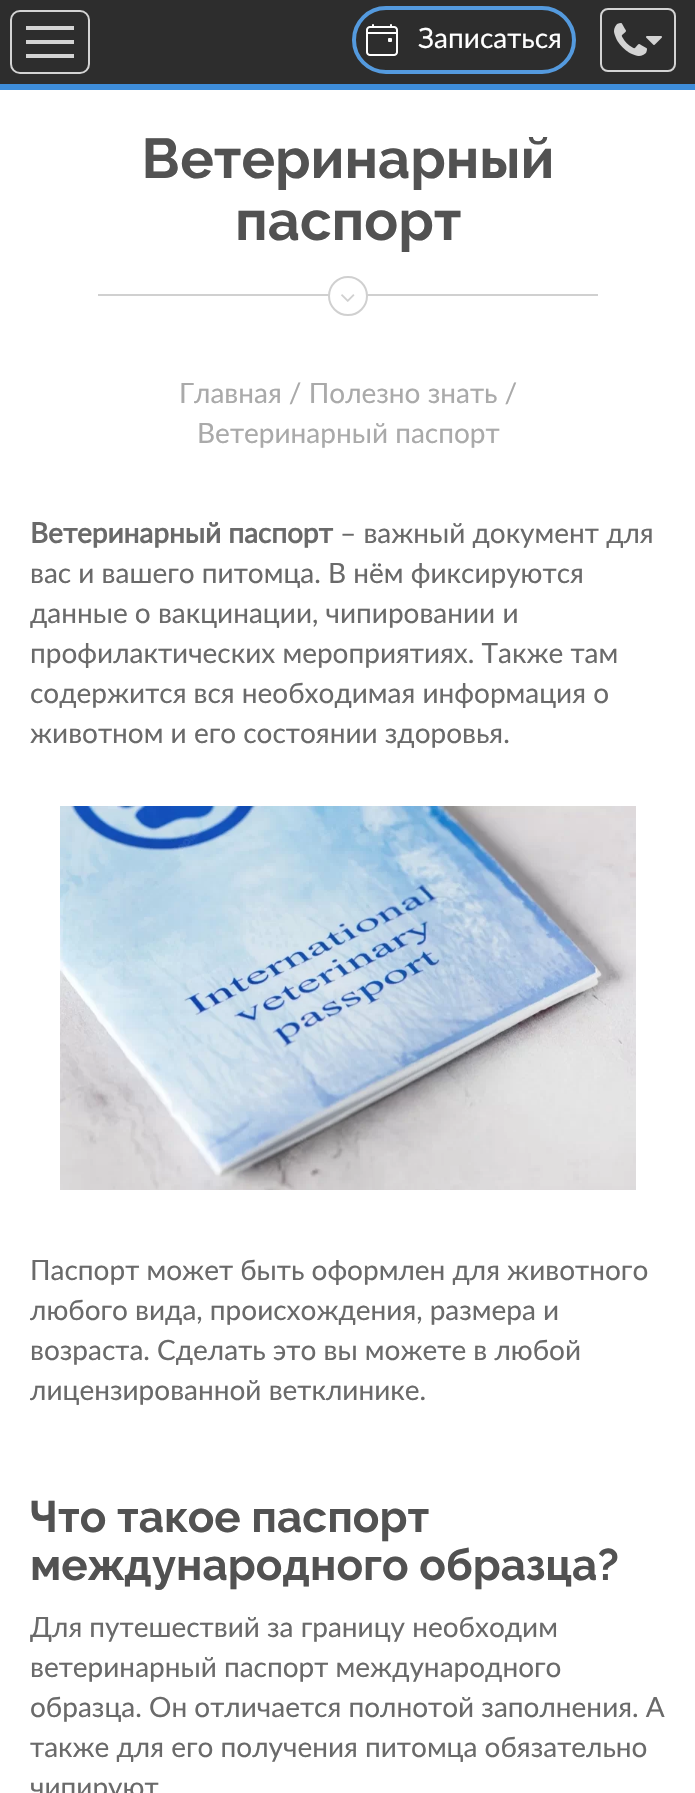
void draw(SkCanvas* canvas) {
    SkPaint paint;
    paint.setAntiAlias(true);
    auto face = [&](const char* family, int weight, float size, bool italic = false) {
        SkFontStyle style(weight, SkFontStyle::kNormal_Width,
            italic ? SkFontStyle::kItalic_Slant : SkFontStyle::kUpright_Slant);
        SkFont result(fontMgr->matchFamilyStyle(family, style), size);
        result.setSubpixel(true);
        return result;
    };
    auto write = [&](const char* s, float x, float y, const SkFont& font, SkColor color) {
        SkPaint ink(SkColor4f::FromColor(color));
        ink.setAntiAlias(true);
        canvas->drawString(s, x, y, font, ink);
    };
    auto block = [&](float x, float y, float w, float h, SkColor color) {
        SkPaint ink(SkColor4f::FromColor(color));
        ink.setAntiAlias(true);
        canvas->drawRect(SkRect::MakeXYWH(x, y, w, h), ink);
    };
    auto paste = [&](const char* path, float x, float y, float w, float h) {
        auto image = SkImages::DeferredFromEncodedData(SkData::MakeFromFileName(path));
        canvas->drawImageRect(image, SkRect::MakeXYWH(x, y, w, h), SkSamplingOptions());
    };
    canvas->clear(SK_ColorWHITE);
    block(0, 0, 695, 84, SkColorSetRGB(45, 45, 45));
    block(0, 84, 695, 6, SkColorSetRGB(62, 141, 218));
    paint.setStyle(SkPaint::kStroke_Style);
    paint.setStrokeWidth(2);
    paint.setColor(SkColorSetRGB(211, 211, 211));
    canvas->drawRoundRect(SkRect::MakeXYWH(11, 11, 78, 62), 9, 9, paint);
    block(26, 26, 48, 4, SkColorSetRGB(211, 211, 211));
    block(26, 40, 48, 4, SkColorSetRGB(211, 211, 211));
    block(26, 54, 48, 4, SkColorSetRGB(211, 211, 211));
    paint.setStrokeWidth(4);
    paint.setColor(SkColorSetRGB(84, 154, 222));
    canvas->drawRoundRect(SkRect::MakeXYWH(354, 8, 220, 64), 32, 32, paint);
    paste("pic1.png", 366, 24, 32, 32);
    auto kFont1 = face("Lato", 400, 28);
    write("Записаться", 418, 48, kFont1, SK_ColorWHITE);
    paint.setStrokeWidth(2);
    paint.setColor(SkColorSetRGB(211, 211, 211));
    canvas->drawRoundRect(SkRect::MakeXYWH(601, 9, 74, 62), 7, 7, paint);
    paste("pic2.png", 614, 23, 33, 33);
    paste("pic3.png", 646, 36, 16, 9);
    auto kFont2 = face("Raleway", 700, 56);
    write("Ветеринарный", 142, 178, kFont2, SkColorSetRGB(82, 82, 82));
    write("паспорт", 235, 240, kFont2, SkColorSetRGB(82, 82, 82));
    block(98, 294, 500, 2, SkColorSetRGB(208, 208, 208));
    paint.setStyle(SkPaint::kFill_Style);
    paint.setColor(SK_ColorWHITE);
    canvas->drawCircle(348, 296, 19, paint);
    paint.setStyle(SkPaint::kStroke_Style);
    paint.setColor(SkColorSetRGB(208, 208, 208));
    canvas->drawCircle(348, 296, 19, paint);
    paste("pic4.png", 341, 294, 14, 8);
    write("Главная / Полезно знать /", 179, 403, kFont1, SkColorSetRGB(170, 170, 170));
    write("Ветеринарный паспорт", 197, 443, kFont1, SkColorSetRGB(170, 170, 170));
    auto kFont3 = face("Lato", 700, 28);
    write("Ветеринарный паспорт", 30, 543, kFont3, SkColorSetRGB(106, 106, 106));
    write("– важный документ для", 340, 543, kFont1, SkColorSetRGB(106, 106, 106));
    write("вас и вашего питомца. В нём фиксируются", 30, 583, kFont1, SkColorSetRGB(106, 106, 106));
    write("данные о вакцинации, чипировании и", 30, 623, kFont1, SkColorSetRGB(106, 106, 106));
    write("профилактических мероприятиях. Также там", 30, 663, kFont1, SkColorSetRGB(106, 106, 106));
    write("содержится вся необходимая информация о", 30, 703, kFont1, SkColorSetRGB(106, 106, 106));
    write("животном и его состоянии здоровья.", 30, 743, kFont1, SkColorSetRGB(106, 106, 106));
    paste("pic5.png", 60, 806, 576, 384);
    write("Паспорт может быть оформлен для животного", 30, 1280, kFont1, SkColorSetRGB(106, 106, 106));
    write("любого вида, происхождения, размера и", 30, 1320, kFont1, SkColorSetRGB(106, 106, 106));
    write("возраста. Сделать это вы можете в любой", 30, 1360, kFont1, SkColorSetRGB(106, 106, 106));
    write("лицензированной ветклинике.", 30, 1400, kFont1, SkColorSetRGB(106, 106, 106));
    auto kFont4 = face("Raleway", 700, 44);
    write("Что такое паспорт", 30, 1532, kFont4, SkColorSetRGB(82, 82, 82));
    write("международного образца?", 30, 1580, kFont4, SkColorSetRGB(82, 82, 82));
    write("Для путешествий за границу необходим", 30, 1637, kFont1, SkColorSetRGB(106, 106, 106));
    write("ветеринарный паспорт международного", 30, 1677, kFont1, SkColorSetRGB(106, 106, 106));
    write("образца. Он отличается полнотой заполнения. А", 30, 1717, kFont1, SkColorSetRGB(106, 106, 106));
    write("также для его получения питомца обязательно", 30, 1757, kFont1, SkColorSetRGB(106, 106, 106));
    write("чипируют", 30, 1797, kFont1, SkColorSetRGB(106, 106, 106));
}
